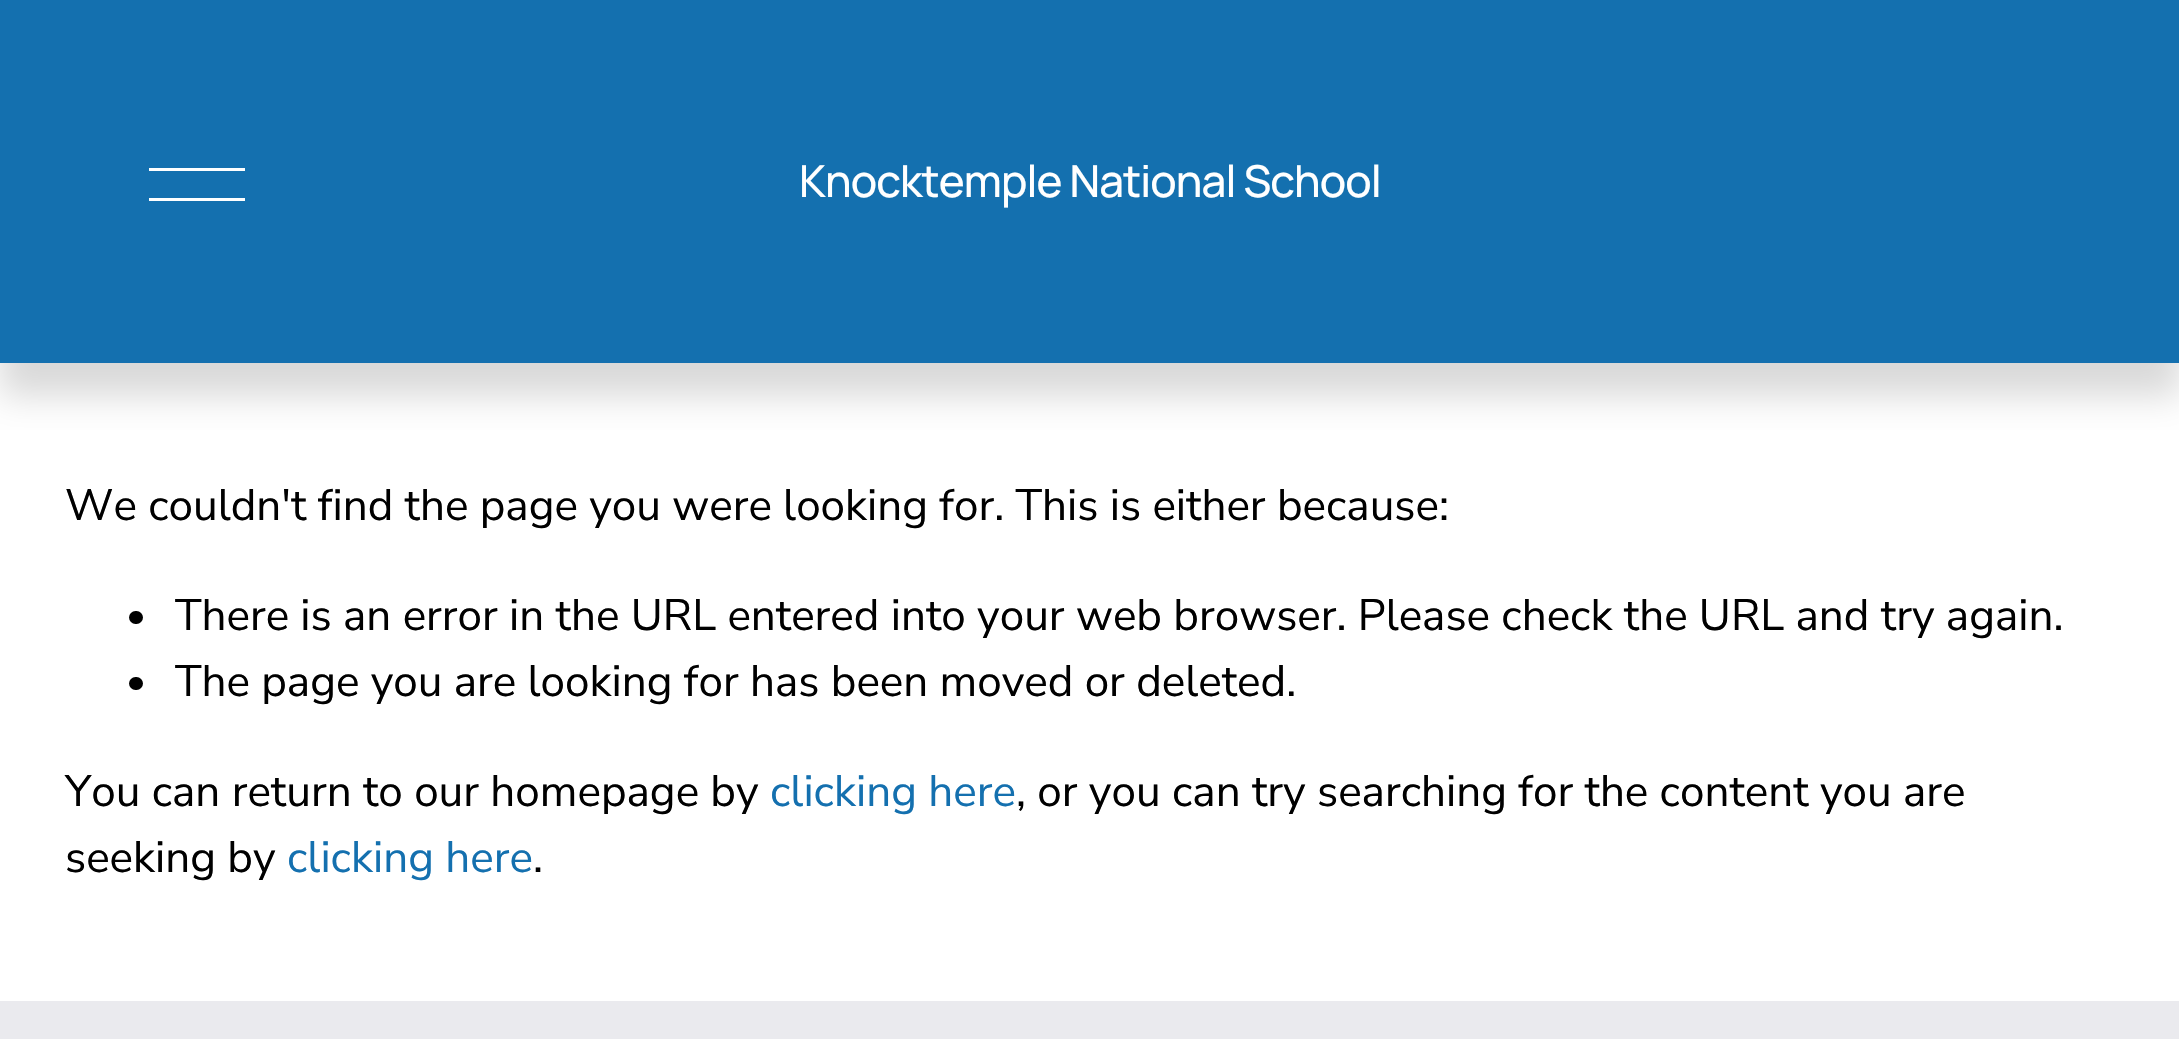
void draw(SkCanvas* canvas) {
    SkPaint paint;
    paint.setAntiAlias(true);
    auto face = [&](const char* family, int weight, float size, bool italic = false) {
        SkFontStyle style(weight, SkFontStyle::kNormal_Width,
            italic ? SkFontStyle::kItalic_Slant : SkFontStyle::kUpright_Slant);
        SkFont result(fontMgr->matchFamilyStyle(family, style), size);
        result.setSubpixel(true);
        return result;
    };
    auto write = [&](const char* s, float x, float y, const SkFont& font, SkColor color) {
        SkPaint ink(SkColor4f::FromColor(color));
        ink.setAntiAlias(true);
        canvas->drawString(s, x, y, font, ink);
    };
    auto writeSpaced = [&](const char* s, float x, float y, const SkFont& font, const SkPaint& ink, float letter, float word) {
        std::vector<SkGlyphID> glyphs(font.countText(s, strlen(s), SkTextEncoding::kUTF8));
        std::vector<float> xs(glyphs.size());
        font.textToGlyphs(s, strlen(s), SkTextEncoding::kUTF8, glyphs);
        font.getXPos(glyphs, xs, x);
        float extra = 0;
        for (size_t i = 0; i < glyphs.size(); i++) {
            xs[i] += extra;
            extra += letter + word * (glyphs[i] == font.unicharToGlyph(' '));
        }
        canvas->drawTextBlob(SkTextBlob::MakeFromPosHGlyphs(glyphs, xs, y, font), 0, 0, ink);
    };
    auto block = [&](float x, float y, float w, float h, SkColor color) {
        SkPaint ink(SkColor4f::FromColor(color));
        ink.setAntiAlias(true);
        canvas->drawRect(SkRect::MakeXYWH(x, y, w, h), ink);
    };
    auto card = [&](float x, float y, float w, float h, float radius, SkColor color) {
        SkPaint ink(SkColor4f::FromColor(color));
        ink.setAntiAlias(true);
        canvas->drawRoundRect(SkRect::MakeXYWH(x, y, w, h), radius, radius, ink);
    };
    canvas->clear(SK_ColorWHITE);
    block(0, 0, 2179, 363, SkColorSetRGB(20, 112, 175));
    canvas->save();
    canvas->clipRect(SkRect::MakeXYWH(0, 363, 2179, 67));
    paint.setColor(SkColorSetRGB(217, 217, 217));
    paint.setMaskFilter(SkMaskFilter::MakeBlur(kNormal_SkBlurStyle, 16.5f));
    canvas->drawRect(SkRect::MakeXYWH(0, 33, 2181, 363), paint);
    paint.setMaskFilter(nullptr);
    canvas->restore();
    block(149, 168, 96, 3, SK_ColorWHITE);
    block(149, 198, 96, 3, SK_ColorWHITE);
    auto kFont1 = face("Manrope", 500, 44);
    paint.setColor(SK_ColorWHITE);
    writeSpaced("Knocktemple National School", 799, 197, kFont1, paint, -0.9f, 0);
    auto kFont2 = face("Nunito Sans", 400, 44);
    write("We couldn't find the page you were looking for. This is either because:", 65, 520, kFont2, SK_ColorBLACK);
    card(129, 611, 14, 13, 6.5f, SK_ColorBLACK);
    write("There is an error in the URL entered into your web browser. Please check the URL and try again.", 175, 630, kFont2, SK_ColorBLACK);
    card(129, 677, 14, 13, 6.5f, SK_ColorBLACK);
    write("The page you are looking for has been moved or deleted.", 175, 696, kFont2, SK_ColorBLACK);
    write("You can return to our homepage by", 65, 806, kFont2, SK_ColorBLACK);
    write("clicking here", 770, 806, kFont2, SkColorSetRGB(20, 112, 175));
    write(", or you can try searching for the content you are", 1016, 806, kFont2, SK_ColorBLACK);
    write("seeking by", 65, 872, kFont2, SK_ColorBLACK);
    write("clicking here", 287, 872, kFont2, SkColorSetRGB(20, 112, 175));
    write(".", 533, 872, kFont2, SK_ColorBLACK);
    block(0, 1001, 2179, 38, SkColorSetRGB(234, 234, 238));
}
